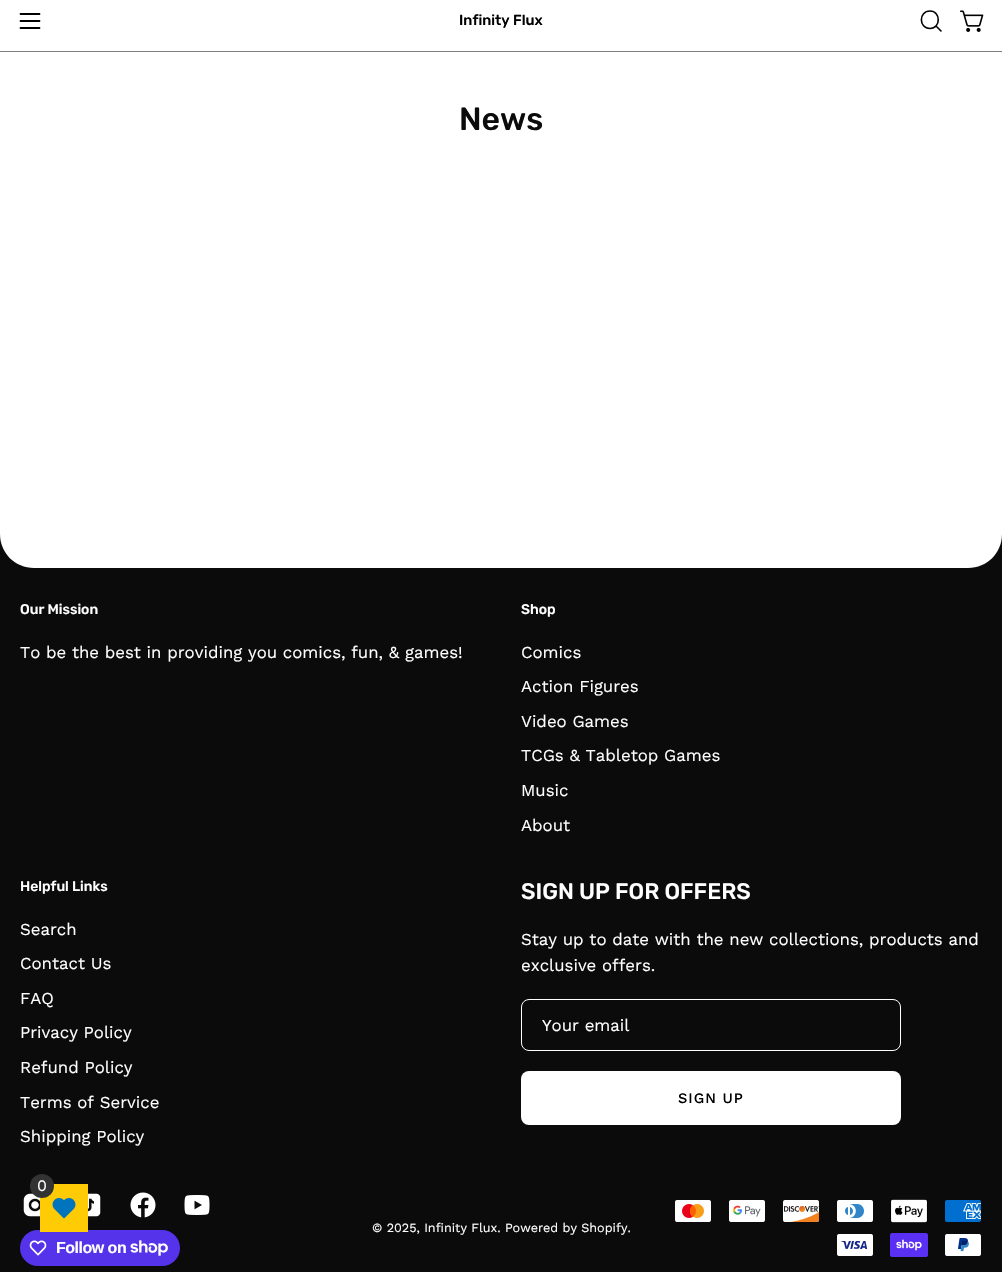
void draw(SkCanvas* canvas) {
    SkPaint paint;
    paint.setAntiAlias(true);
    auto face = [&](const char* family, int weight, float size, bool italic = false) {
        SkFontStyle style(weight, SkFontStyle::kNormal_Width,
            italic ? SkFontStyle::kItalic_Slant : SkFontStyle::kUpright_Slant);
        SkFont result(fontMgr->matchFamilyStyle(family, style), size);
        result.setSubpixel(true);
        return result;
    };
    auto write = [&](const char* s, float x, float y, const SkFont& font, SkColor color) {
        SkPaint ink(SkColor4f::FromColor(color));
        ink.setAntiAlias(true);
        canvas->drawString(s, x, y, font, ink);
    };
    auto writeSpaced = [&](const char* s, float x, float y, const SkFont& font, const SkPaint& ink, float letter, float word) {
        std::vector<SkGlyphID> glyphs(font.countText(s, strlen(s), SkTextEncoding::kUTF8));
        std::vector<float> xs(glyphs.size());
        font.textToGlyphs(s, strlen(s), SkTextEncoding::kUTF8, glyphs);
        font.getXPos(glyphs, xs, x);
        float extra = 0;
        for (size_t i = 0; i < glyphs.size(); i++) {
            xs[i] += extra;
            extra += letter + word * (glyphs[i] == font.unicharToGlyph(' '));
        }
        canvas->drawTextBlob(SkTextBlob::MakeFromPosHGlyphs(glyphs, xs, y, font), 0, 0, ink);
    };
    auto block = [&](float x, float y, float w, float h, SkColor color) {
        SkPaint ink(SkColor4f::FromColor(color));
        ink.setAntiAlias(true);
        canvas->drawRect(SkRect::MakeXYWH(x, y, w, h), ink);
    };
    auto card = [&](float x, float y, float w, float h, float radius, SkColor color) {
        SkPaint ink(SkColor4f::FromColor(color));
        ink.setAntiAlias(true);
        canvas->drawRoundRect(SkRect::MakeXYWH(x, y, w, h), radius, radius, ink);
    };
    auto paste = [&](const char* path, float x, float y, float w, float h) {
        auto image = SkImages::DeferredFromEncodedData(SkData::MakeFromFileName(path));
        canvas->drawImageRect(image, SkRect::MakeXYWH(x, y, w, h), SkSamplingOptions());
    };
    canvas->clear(SK_ColorWHITE);
    paint.setStyle(SkPaint::kStroke_Style);
    paint.setStrokeWidth(1.8f);
    paint.setStrokeCap(SkPaint::kRound_Cap);
    paint.setStrokeJoin(SkPaint::kRound_Join);
    paint.setColor(SK_ColorBLACK);
    canvas->drawPath(SkPathBuilder().moveTo(20.5f, 21).lineTo(39.5f, 21).moveTo(20.5f, 14).lineTo(39.5f, 14).moveTo(20.5f, 28).lineTo(39.5f, 28).detach(), paint);
    auto kFont1 = face("Rubik", 500, 14.5f);
    write("Infinity Flux", 459, 25, kFont1, SK_ColorBLACK);
    paint.setStrokeWidth(1.6f);
    canvas->drawPath(SkPathBuilder().moveTo(930, 28.5f).cubicTo(941, 28.5f, 941, 11, 930, 11).cubicTo(918.5f, 11, 918.5f, 28.5f, 930, 28.5f).close().moveTo(936, 26).lineTo(941, 31).detach(), paint);
    paste("pic1.png", 960, 10, 24, 22);
    block(0, 534, 1002, 738, SkColorSetRGB(11, 11, 11));
    paint.setStyle(SkPaint::kFill_Style);
    paint.setColor(SkColorSetRGB(11, 11, 11));
    paint.setMaskFilter(SkMaskFilter::MakeBlur(kNormal_SkBlurStyle, 12.5f));
    canvas->drawRoundRect(SkRect::MakeXYWH(10, 86, 982, 497), 24, 24, paint);
    paint.setMaskFilter(nullptr);
    paint.setColor(SK_ColorWHITE);
    canvas->drawPath(SkPathBuilder().moveTo(0, 51).lineTo(1002, 51).lineTo(1002, 534).cubicTo(1002, 553, 987, 568, 968, 568).lineTo(34, 568).cubicTo(15, 568, 0, 553, 0, 534).close().detach(), paint);
    block(0, 51, 1002, 1, SkColorSetRGB(128, 128, 128));
    auto kFont2 = face("Rubik", 500, 32);
    write("News", 459, 130, kFont2, SkColorSetRGB(11, 11, 11));
    auto kFont3 = face("Rubik", 500, 14);
    write("Our Mission", 20, 614, kFont3, SK_ColorWHITE);
    auto kFont4 = face("Work Sans", 400, 16.8f);
    write("To be the best in providing you comics, fun, & games!", 20, 658, kFont4, SK_ColorWHITE);
    write("Shop", 521, 614, kFont3, SK_ColorWHITE);
    write("Comics", 521, 658, kFont4, SK_ColorWHITE);
    write("Action Figures", 521, 692, kFont4, SK_ColorWHITE);
    write("Video Games", 521, 727, kFont4, SK_ColorWHITE);
    write("TCGs & Tabletop Games", 521, 761, kFont4, SK_ColorWHITE);
    write("Music", 521, 796, kFont4, SK_ColorWHITE);
    write("About", 521, 831, kFont4, SK_ColorWHITE);
    write("Helpful Links", 20, 891, kFont3, SK_ColorWHITE);
    write("Search", 20, 935, kFont4, SK_ColorWHITE);
    write("Contact Us", 20, 969, kFont4, SK_ColorWHITE);
    write("FAQ", 20, 1004, kFont4, SK_ColorWHITE);
    write("Privacy Policy", 20, 1038, kFont4, SK_ColorWHITE);
    write("Refund Policy", 20, 1073, kFont4, SK_ColorWHITE);
    write("Terms of Service", 20, 1108, kFont4, SK_ColorWHITE);
    write("Shipping Policy", 20, 1142, kFont4, SK_ColorWHITE);
    auto kFont5 = face("Rubik", 500, 22.5f);
    write("SIGN UP FOR OFFERS", 521, 899, kFont5, SK_ColorWHITE);
    write("Stay up to date with the new collections, products and", 521, 945, kFont4, SK_ColorWHITE);
    write("exclusive offers.", 521, 971, kFont4, SK_ColorWHITE);
    paint.setStyle(SkPaint::kStroke_Style);
    paint.setStrokeWidth(1);
    paint.setStrokeCap(SkPaint::kButt_Cap);
    paint.setStrokeJoin(SkPaint::kMiter_Join);
    canvas->drawRoundRect(SkRect::MakeXYWH(521.5f, 999.5f, 379, 51), 7.5f, 7.5f, paint);
    write("Your email", 542, 1031, kFont4, SK_ColorWHITE);
    card(521, 1071, 380, 54, 8, SK_ColorWHITE);
    auto kFont6 = face("Work Sans", 500, 14.5f);
    paint.setStyle(SkPaint::kFill_Style);
    paint.setColor(SK_ColorBLACK);
    writeSpaced("SIGN UP", 678, 1103, kFont6, paint, 1, 0);
    auto kFont7 = face("Work Sans", 400, 12.6f);
    write("© 2025, Infinity Flux. Powered by Shopify.", 372, 1232, kFont7, SK_ColorWHITE);
    paste("pic2.png", 675, 1200, 36, 22);
    paste("pic3.png", 729, 1200, 36, 22);
    paste("pic4.png", 783, 1200, 36, 22);
    paste("pic5.png", 837, 1200, 36, 22);
    paste("pic6.png", 890, 1199, 38, 24);
    paste("pic7.png", 945, 1200, 36, 22);
    paste("pic8.png", 837, 1234, 36, 22);
    paste("pic9.png", 890, 1233, 38, 24);
    paste("pic10.png", 945, 1234, 36, 22);
    paste("pic11.png", 23, 1193, 17, 24);
    paste("pic12.png", 88, 1193, 13, 24);
    paste("pic13.png", 130, 1192, 26, 26);
    paste("pic14.png", 184, 1195, 26, 20);
    card(20, 1230, 160, 36, 18, SkColorSetRGB(84, 51, 235));
    paste("pic15.png", 29, 1240, 18, 16);
    auto kFont8 = face("Liberation Sans", 700, 16);
    paint.setColor(SK_ColorWHITE);
    writeSpaced("Follow on", 56, 1253, kFont8, paint, -0.5f, 0);
    paste("pic16.png", 130, 1240, 38, 16);
    block(40, 1184, 48, 48, SkColorSetRGB(255, 203, 5));
    paint.setColor(SkColorSetRGB(51, 51, 51));
    canvas->drawCircle(42, 1186, 12, paint);
    auto kFont9 = face("Work Sans", 400, 16);
    write("0", 37, 1191, kFont9, SK_ColorWHITE);
    paste("pic17.png", 52, 1198, 24, 21);
}
